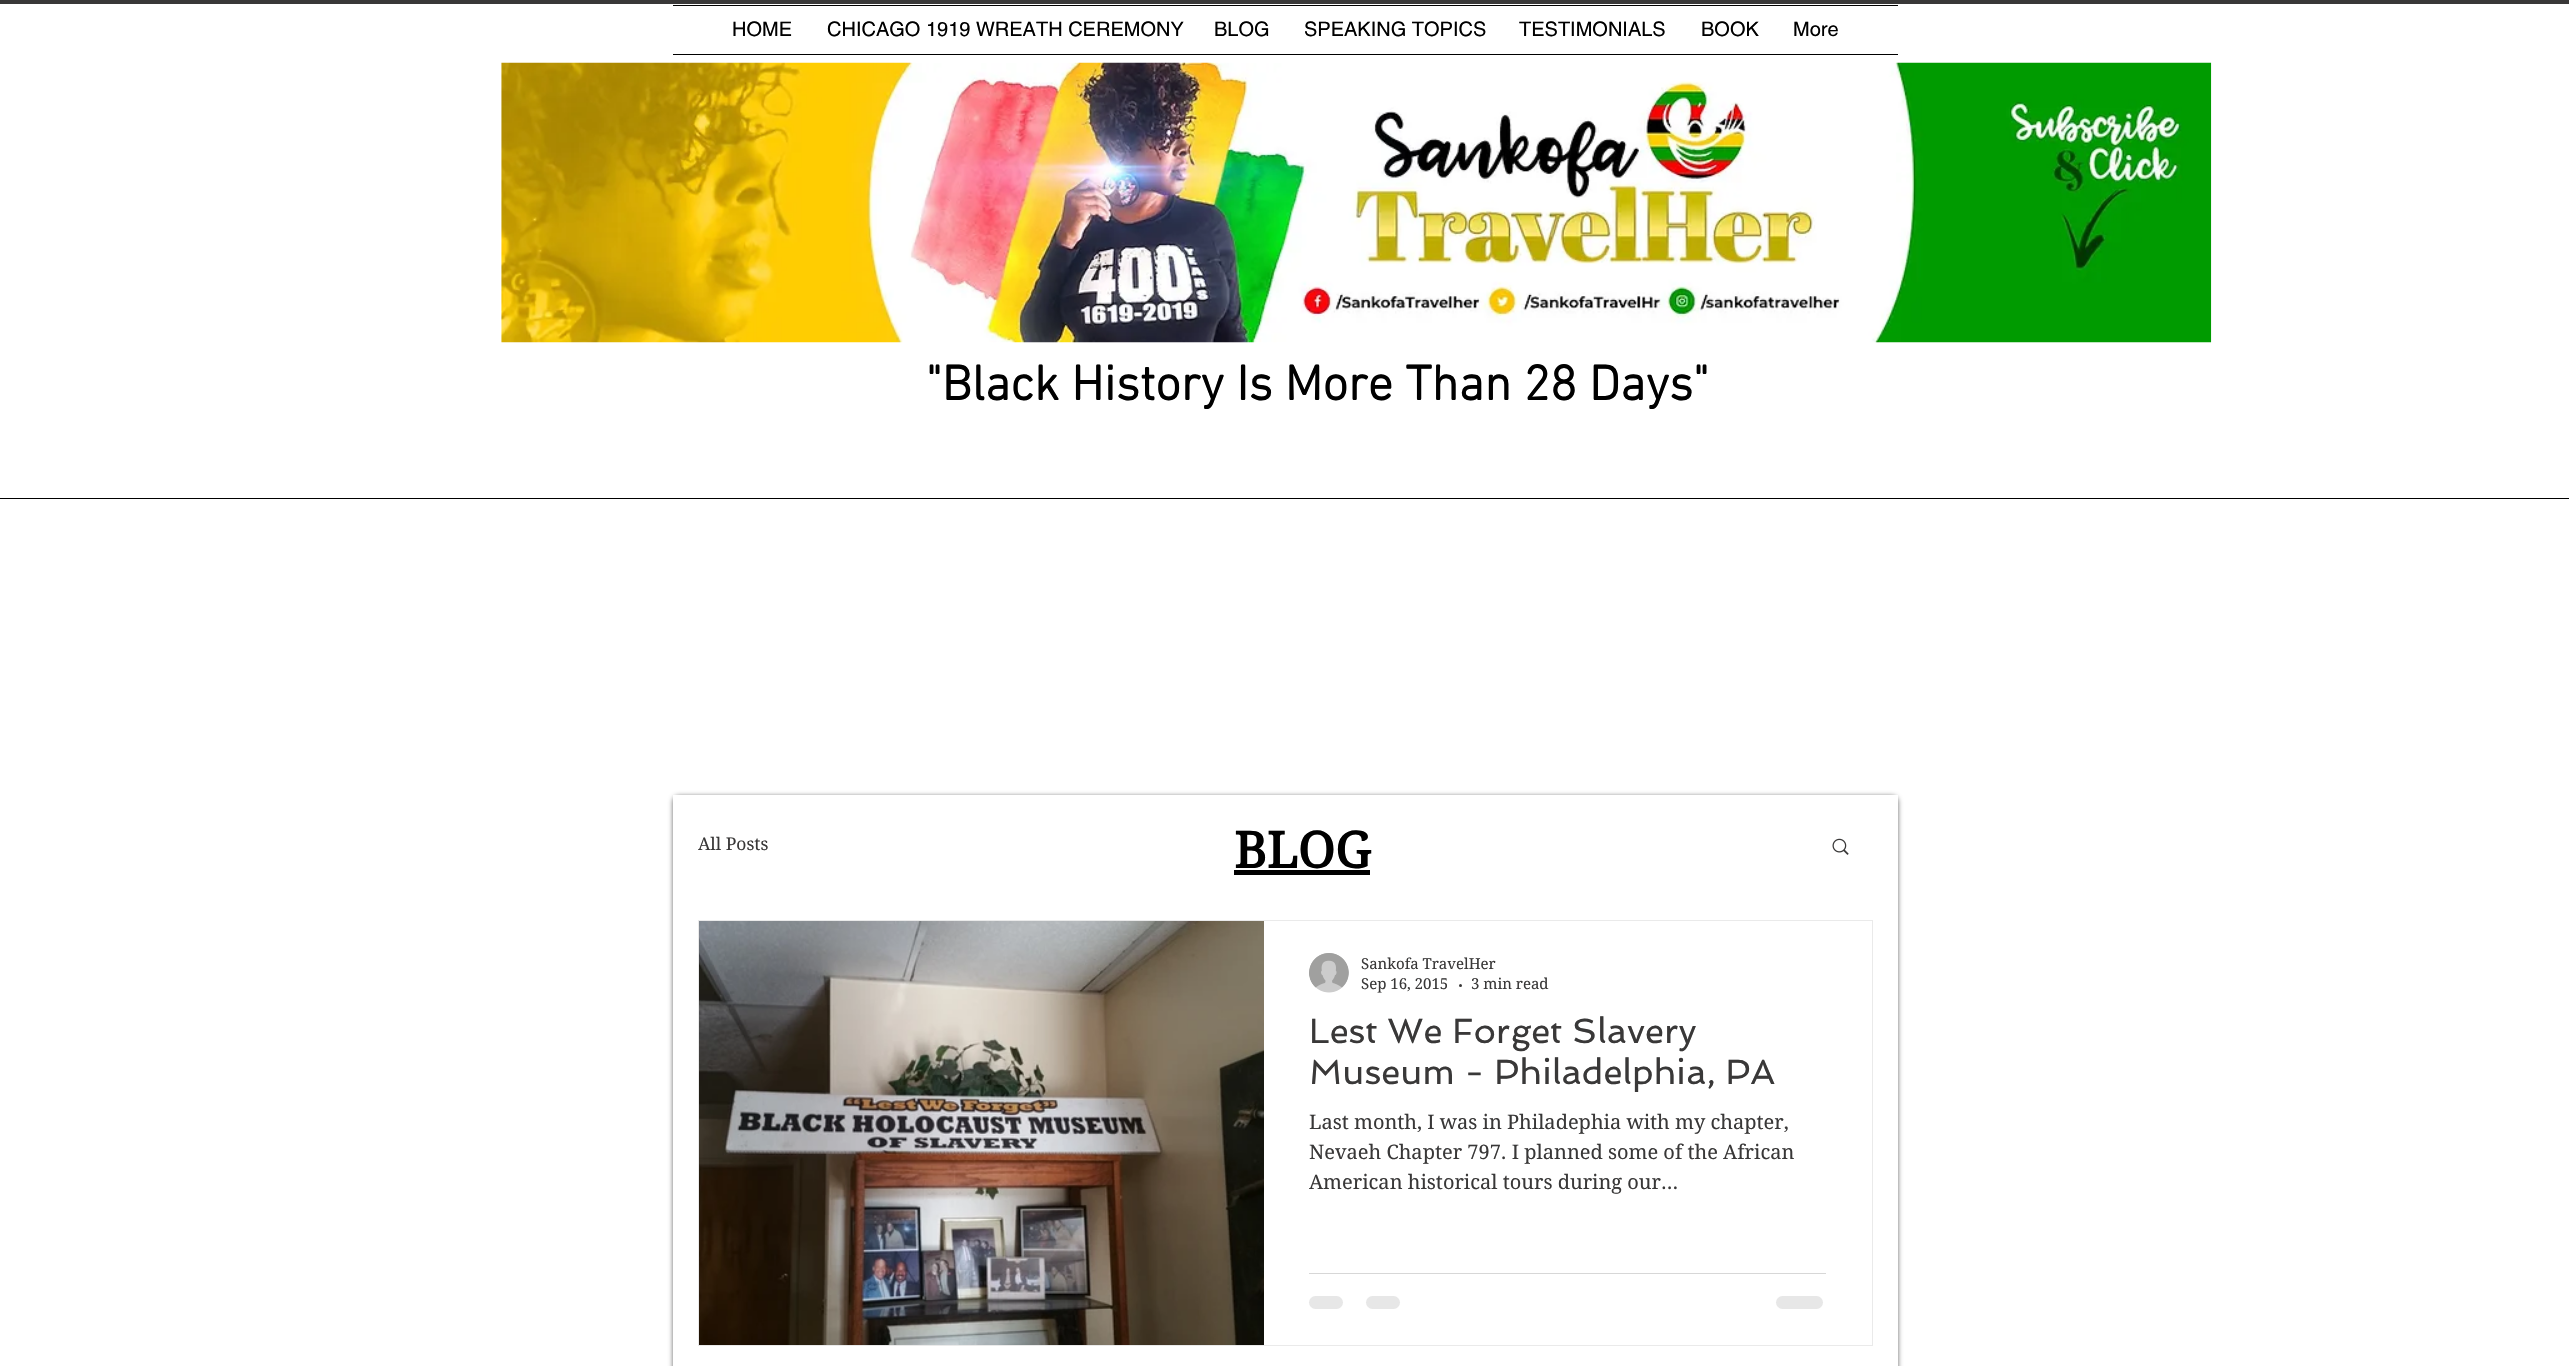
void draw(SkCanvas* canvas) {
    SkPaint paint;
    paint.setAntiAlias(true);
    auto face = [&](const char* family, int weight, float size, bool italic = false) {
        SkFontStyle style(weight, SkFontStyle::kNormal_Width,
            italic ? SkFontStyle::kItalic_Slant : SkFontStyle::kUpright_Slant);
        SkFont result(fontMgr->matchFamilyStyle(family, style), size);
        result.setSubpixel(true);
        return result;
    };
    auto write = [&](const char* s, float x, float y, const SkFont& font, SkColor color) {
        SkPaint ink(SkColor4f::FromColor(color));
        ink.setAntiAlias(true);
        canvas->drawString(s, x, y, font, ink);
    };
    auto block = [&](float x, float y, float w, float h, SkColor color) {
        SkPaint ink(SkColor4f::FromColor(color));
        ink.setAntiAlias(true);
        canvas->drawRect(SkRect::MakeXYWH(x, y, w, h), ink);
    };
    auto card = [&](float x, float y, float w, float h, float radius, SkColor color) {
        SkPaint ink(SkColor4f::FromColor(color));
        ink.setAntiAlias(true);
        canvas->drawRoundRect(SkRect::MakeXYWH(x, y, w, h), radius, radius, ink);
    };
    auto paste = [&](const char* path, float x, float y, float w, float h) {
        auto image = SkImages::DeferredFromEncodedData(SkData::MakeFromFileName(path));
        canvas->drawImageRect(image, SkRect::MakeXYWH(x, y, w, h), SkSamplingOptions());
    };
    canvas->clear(SK_ColorWHITE);
    block(0, 0, 2569, 4, SkColorSetRGB(57, 56, 56));
    block(673, 5, 1225, 1, SK_ColorBLACK);
    block(673, 54, 1225, 1, SK_ColorBLACK);
    auto kFont1 = face("helvetica", 400, 20);
    write("HOME", 732, 36, kFont1, SK_ColorBLACK);
    write("CHICAGO 1919 WREATH CEREMONY", 827, 36, kFont1, SK_ColorBLACK);
    write("BLOG", 1214, 36, kFont1, SK_ColorBLACK);
    write("SPEAKING TOPICS", 1304, 36, kFont1, SK_ColorBLACK);
    write("TESTIMONIALS", 1519, 36, kFont1, SK_ColorBLACK);
    write("BOOK", 1701, 36, kFont1, SK_ColorBLACK);
    write("More", 1793, 36, kFont1, SK_ColorBLACK);
    paste("pic1.png", 501, 62, 1711, 281);
    auto kFont2 = face("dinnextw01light", 700, 50);
    write("\"Black History Is More Than 28 Days\"", 926, 400, kFont2, SK_ColorBLACK);
    block(0, 498, 2569, 1, SK_ColorBLACK);
    paint.setColor(SkColorSetARGB(153, 0, 0, 0));
    paint.setMaskFilter(SkMaskFilter::MakeBlur(kNormal_SkBlurStyle, 2.5f));
    canvas->drawRoundRect(SkRect::MakeXYWH(673, 796, 1225, 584), 6, 6, paint);
    paint.setMaskFilter(nullptr);
    block(673, 795, 1225, 571, SK_ColorWHITE);
    auto kFont3 = face("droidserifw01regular", 700, 50);
    write("BLOG", 1234, 868, kFont3, SK_ColorBLACK);
    block(1234, 870, 136, 5, SK_ColorBLACK);
    auto kFont4 = face("droidserifw01regular", 400, 17.5f);
    write("All Posts", 698, 850, kFont4, SkColorSetRGB(57, 56, 56));
    paste("pic2.png", 1832, 838, 17, 17);
    paint.setStyle(SkPaint::kStroke_Style);
    paint.setStrokeWidth(1);
    paint.setColor(SkColorSetRGB(234, 234, 234));
    canvas->drawRect(SkRect::MakeXYWH(698.5f, 920.5f, 1174, 425), paint);
    paste("pic3.png", 699, 921, 565, 424);
    paste("pic4.png", 1309, 953, 40, 40);
    auto kFont5 = face("droidserifw01regular", 400, 15);
    write("Sankofa TravelHer", 1361, 969, kFont5, SkColorSetRGB(57, 56, 56));
    write("Sep 16, 2015", 1361, 989, kFont5, SkColorSetRGB(57, 56, 56));
    paint.setStyle(SkPaint::kFill_Style);
    paint.setColor(SkColorSetRGB(57, 56, 56));
    canvas->drawCircle(1460.5f, 985.5f, 1.5f, paint);
    write("3 min read", 1471, 989, kFont5, SkColorSetRGB(57, 56, 56));
    auto kFont6 = face("Spinnaker", 400, 35);
    write("Lest We Forget Slavery", 1309, 1043, kFont6, SkColorSetRGB(57, 56, 56));
    write("Museum - Philadelphia, PA", 1309, 1084, kFont6, SkColorSetRGB(57, 56, 56));
    auto kFont7 = face("droidserifw01regular", 400, 20);
    write("Last month, I was in Philadephia with my chapter,", 1309, 1129, kFont7, SkColorSetRGB(57, 56, 56));
    write("Nevaeh Chapter 797. I planned some of the African", 1309, 1159, kFont7, SkColorSetRGB(57, 56, 56));
    write("American historical tours during our...", 1309, 1189, kFont7, SkColorSetRGB(57, 56, 56));
    block(1309, 1273, 517, 1, SkColorSetRGB(215, 215, 215));
    card(1309, 1296, 34, 13, 6.5f, SkColorSetRGB(231, 231, 231));
    card(1366, 1296, 34, 13, 6.5f, SkColorSetRGB(231, 231, 231));
    card(1776, 1296, 47, 13, 6.5f, SkColorSetRGB(231, 231, 231));
}
